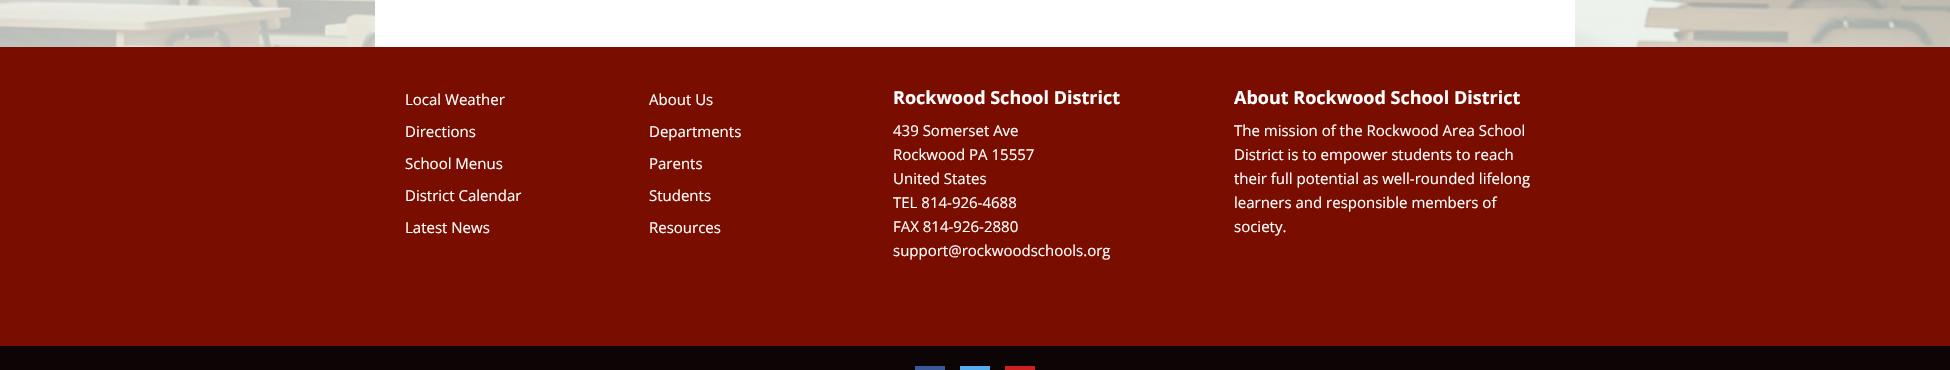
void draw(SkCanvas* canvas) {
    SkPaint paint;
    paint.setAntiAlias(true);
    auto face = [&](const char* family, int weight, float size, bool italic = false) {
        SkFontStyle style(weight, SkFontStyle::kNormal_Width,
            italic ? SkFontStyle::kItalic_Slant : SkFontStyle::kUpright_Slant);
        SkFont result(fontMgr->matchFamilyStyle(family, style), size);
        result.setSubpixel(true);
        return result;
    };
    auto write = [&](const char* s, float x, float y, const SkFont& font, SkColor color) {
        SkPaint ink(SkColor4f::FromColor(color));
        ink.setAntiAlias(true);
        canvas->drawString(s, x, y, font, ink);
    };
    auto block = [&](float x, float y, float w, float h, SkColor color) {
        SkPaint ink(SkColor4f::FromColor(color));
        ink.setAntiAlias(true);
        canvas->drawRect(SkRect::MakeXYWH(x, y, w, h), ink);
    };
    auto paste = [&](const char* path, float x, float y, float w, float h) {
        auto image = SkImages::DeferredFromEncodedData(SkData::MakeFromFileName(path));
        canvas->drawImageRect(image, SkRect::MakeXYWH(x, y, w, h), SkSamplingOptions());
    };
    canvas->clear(SK_ColorWHITE);
    paste("pic1.png", 0, 0, 1950, 47);
    block(375, 0, 1200, 47, SK_ColorWHITE);
    block(0, 47, 1950, 299, SkColorSetRGB(121, 13, 0));
    auto kFont1 = face("Open Sans", 400, 15);
    write("Local Weather", 405, 105, kFont1, SK_ColorWHITE);
    write("Directions", 405, 137, kFont1, SK_ColorWHITE);
    write("School Menus", 405, 169, kFont1, SK_ColorWHITE);
    write("District Calendar", 405, 201, kFont1, SK_ColorWHITE);
    write("Latest News", 405, 233, kFont1, SK_ColorWHITE);
    write("About Us", 649, 105, kFont1, SK_ColorWHITE);
    write("Departments", 649, 137, kFont1, SK_ColorWHITE);
    write("Parents", 649, 169, kFont1, SK_ColorWHITE);
    write("Students", 649, 201, kFont1, SK_ColorWHITE);
    write("Resources", 649, 233, kFont1, SK_ColorWHITE);
    auto kFont2 = face("Open Sans", 700, 18);
    write("Rockwood School District", 893, 104, kFont2, SK_ColorWHITE);
    write("439 Somerset Ave", 893, 136, kFont1, SK_ColorWHITE);
    write("Rockwood PA 15557", 893, 160, kFont1, SK_ColorWHITE);
    write("United States", 893, 184, kFont1, SK_ColorWHITE);
    write("TEL 814-926-4688", 893, 208, kFont1, SK_ColorWHITE);
    write("FAX 814-926-2880", 893, 232, kFont1, SK_ColorWHITE);
    write("support@rockwoodschools.org", 893, 256, kFont1, SK_ColorWHITE);
    write("About Rockwood School District", 1234, 104, kFont2, SK_ColorWHITE);
    write("The mission of the Rockwood Area School", 1234, 136, kFont1, SK_ColorWHITE);
    write("District is to empower students to reach", 1234, 160, kFont1, SK_ColorWHITE);
    write("their full potential as well-rounded lifelong", 1234, 184, kFont1, SK_ColorWHITE);
    write("learners and responsible members of", 1234, 208, kFont1, SK_ColorWHITE);
    write("society.", 1234, 232, kFont1, SK_ColorWHITE);
    block(0, 346, 1950, 24, SkColorSetRGB(12, 4, 5));
    block(915, 366, 30, 4, SkColorSetRGB(59, 89, 152));
    block(960, 366, 30, 4, SkColorSetRGB(85, 172, 238));
    block(1005, 366, 30, 4, SkColorSetRGB(205, 32, 31));
}
